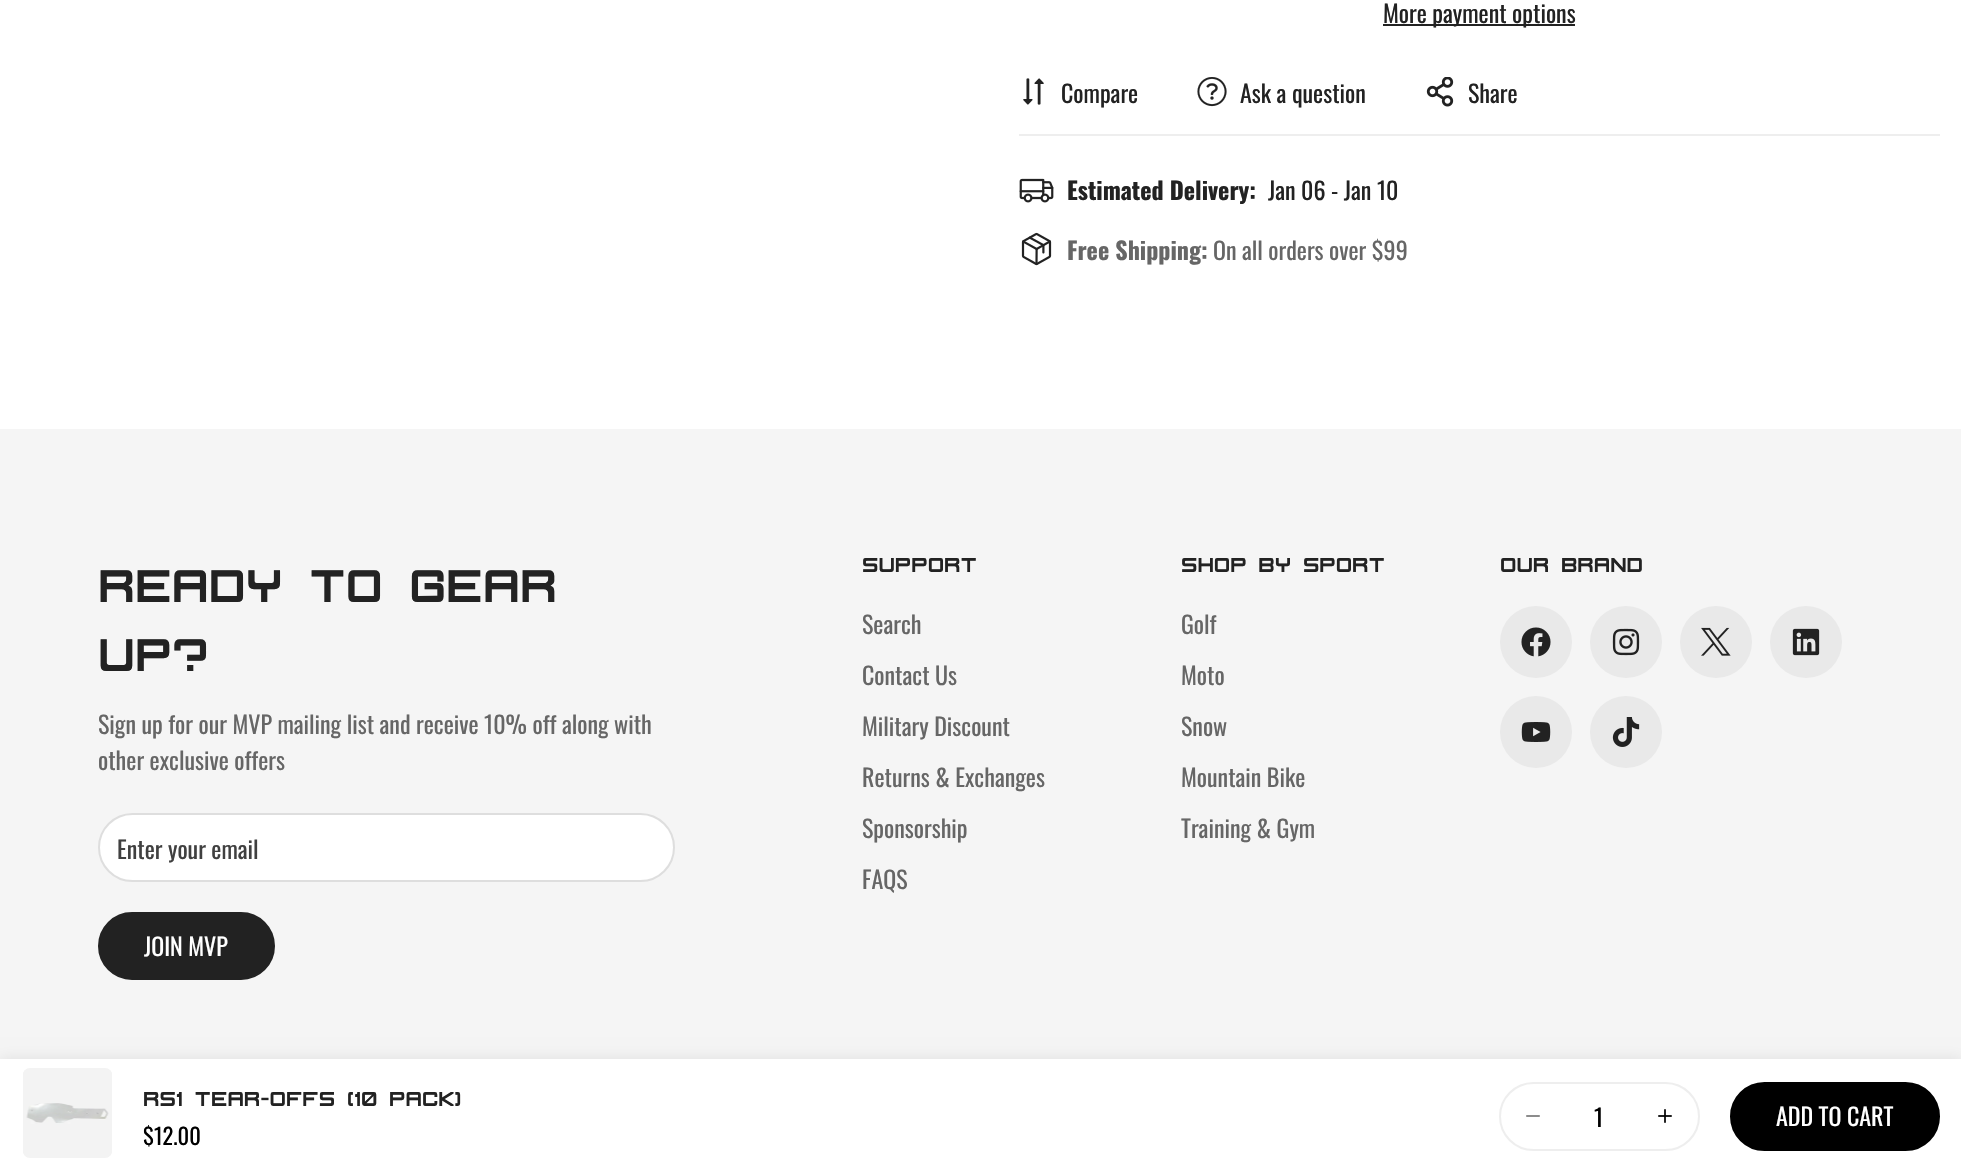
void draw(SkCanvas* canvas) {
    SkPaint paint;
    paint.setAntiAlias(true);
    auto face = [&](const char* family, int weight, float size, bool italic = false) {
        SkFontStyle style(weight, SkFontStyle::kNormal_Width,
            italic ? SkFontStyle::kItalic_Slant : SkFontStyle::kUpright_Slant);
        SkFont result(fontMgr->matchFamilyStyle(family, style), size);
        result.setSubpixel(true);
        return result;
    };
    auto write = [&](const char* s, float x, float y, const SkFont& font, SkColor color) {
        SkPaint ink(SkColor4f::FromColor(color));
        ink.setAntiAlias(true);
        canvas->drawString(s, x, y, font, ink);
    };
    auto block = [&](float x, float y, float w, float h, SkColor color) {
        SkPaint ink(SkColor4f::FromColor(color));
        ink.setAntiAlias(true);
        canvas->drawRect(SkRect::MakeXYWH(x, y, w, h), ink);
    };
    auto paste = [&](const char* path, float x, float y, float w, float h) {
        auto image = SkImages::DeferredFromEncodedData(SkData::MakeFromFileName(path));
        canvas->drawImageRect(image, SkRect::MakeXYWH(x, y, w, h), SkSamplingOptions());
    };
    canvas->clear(SK_ColorWHITE);
    block(1383, 24, 192, 2, SkColorSetRGB(34, 34, 34));
    auto kFont1 = face("Oswald", 400, 24);
    write("More payment options", 1383, 23, kFont1, SkColorSetRGB(34, 34, 34));
    block(1019, 134, 921, 2, SkColorSetRGB(238, 238, 238));
    paste("pic1.png", 1023, 78, 21, 27);
    write("Compare", 1061, 103, kFont1, SkColorSetRGB(34, 34, 34));
    paste("pic2.png", 1197, 77, 30, 30);
    write("Ask a question", 1240, 103, kFont1, SkColorSetRGB(34, 34, 34));
    paste("pic3.png", 1426, 77, 28, 30);
    write("Share", 1468, 103, kFont1, SkColorSetRGB(34, 34, 34));
    paste("pic4.png", 1019, 178, 35, 25);
    auto kFont2 = face("Oswald", 700, 24);
    write("Estimated Delivery:", 1067, 200, kFont2, SkColorSetRGB(34, 34, 34));
    write("Jan 06 - Jan 10", 1268, 200, kFont1, SkColorSetRGB(34, 34, 34));
    paste("pic5.png", 1021, 232, 31, 34);
    write("Free Shipping:", 1067, 260, kFont2, SkColorSetRGB(102, 102, 102));
    write("On all orders over $99", 1213, 260, kFont1, SkColorSetRGB(102, 102, 102));
    block(0, 429, 1961, 630, SkColorSetRGB(245, 245, 245));
    paint.setColor(SkColorSetARGB(23, 0, 0, 0));
    paint.setMaskFilter(SkMaskFilter::MakeBlur(kNormal_SkBlurStyle, 7.5f));
    canvas->drawRect(SkRect::MakeXYWH(0, 1059, 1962, 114), paint);
    paint.setMaskFilter(nullptr);
    block(0, 1059, 1961, 113, SK_ColorWHITE);
    paste("pic6.png", 23, 1068, 89, 90);
    auto kFont3 = face("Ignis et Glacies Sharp", 700, 24);
    write("RS1 Tear-Offs (10 Pack)", 143, 1106, kFont3, SkColorSetRGB(34, 34, 34));
    auto kFont4 = face("Oswald", 400, 22.5f);
    write("$12.00", 143, 1145, kFont4, SK_ColorBLACK);
    paint.setStyle(SkPaint::kStroke_Style);
    paint.setStrokeWidth(2);
    paint.setColor(SkColorSetRGB(238, 238, 238));
    canvas->drawRoundRect(SkRect::MakeXYWH(1500, 1083, 199, 67), 33.5f, 33.5f, paint);
    paste("pic7.png", 1526, 1115, 14, 2);
    write("1", 1594, 1127, kFont1, SK_ColorBLACK);
    paste("pic8.png", 1658, 1109, 14, 14);
    paint.setStyle(SkPaint::kFill_Style);
    paint.setColor(SK_ColorBLACK);
    canvas->drawRoundRect(SkRect::MakeXYWH(1731, 1083, 208, 67), 33.5f, 33.5f, paint);
    paint.setStyle(SkPaint::kStroke_Style);
    canvas->drawRoundRect(SkRect::MakeXYWH(1731, 1083, 208, 67), 33.5f, 33.5f, paint);
    write("ADD TO CART", 1776, 1126, kFont1, SK_ColorWHITE);
    write("Support", 862, 572, kFont3, SkColorSetRGB(34, 34, 34));
    write("Search", 862, 634, kFont1, SkColorSetRGB(102, 102, 102));
    write("Contact Us", 862, 685, kFont1, SkColorSetRGB(102, 102, 102));
    write("Military Discount", 862, 736, kFont1, SkColorSetRGB(102, 102, 102));
    write("Returns & Exchanges", 862, 787, kFont1, SkColorSetRGB(102, 102, 102));
    write("Sponsorship", 862, 838, kFont1, SkColorSetRGB(102, 102, 102));
    write("FAQS", 862, 889, kFont1, SkColorSetRGB(102, 102, 102));
    write("SHOP BY SPORT", 1181, 572, kFont3, SkColorSetRGB(34, 34, 34));
    write("Golf", 1181, 634, kFont1, SkColorSetRGB(102, 102, 102));
    write("Moto", 1181, 685, kFont1, SkColorSetRGB(102, 102, 102));
    write("Snow", 1181, 736, kFont1, SkColorSetRGB(102, 102, 102));
    write("Mountain Bike", 1181, 787, kFont1, SkColorSetRGB(102, 102, 102));
    write("Training & Gym", 1181, 838, kFont1, SkColorSetRGB(102, 102, 102));
    write("Our BRAND", 1500, 572, kFont3, SkColorSetRGB(34, 34, 34));
    paint.setStyle(SkPaint::kFill_Style);
    paint.setColor(SkColorSetRGB(233, 233, 233));
    canvas->drawCircle(1536, 642, 36, paint);
    paste("pic9.png", 1521, 627, 30, 30);
    canvas->drawCircle(1626, 642, 36, paint);
    paste("pic10.png", 1612, 628, 28, 28);
    canvas->drawCircle(1716, 642, 36, paint);
    paste("pic11.png", 1701, 627, 30, 29);
    canvas->drawCircle(1806, 642, 36, paint);
    paste("pic12.png", 1792, 628, 28, 28);
    canvas->drawCircle(1536, 732, 36, paint);
    paste("pic13.png", 1521, 722, 30, 20);
    canvas->drawCircle(1626, 732, 36, paint);
    paste("pic14.png", 1612, 717, 28, 30);
    auto kFont5 = face("Ignis et Glacies Sharp", 700, 54);
    write("Ready to Gear", 98, 602, kFont5, SkColorSetRGB(34, 34, 34));
    write("Up?", 98, 671, kFont5, SkColorSetRGB(34, 34, 34));
    write("Sign up for our MVP mailing list and receive 10% off along with", 98, 734, kFont1, SkColorSetRGB(102, 102, 102));
    write("other exclusive offers", 98, 770, kFont1, SkColorSetRGB(102, 102, 102));
    paint.setColor(SK_ColorWHITE);
    canvas->drawRoundRect(SkRect::MakeXYWH(99, 814, 575, 67), 33.5f, 33.5f, paint);
    paint.setStyle(SkPaint::kStroke_Style);
    paint.setColor(SkColorSetRGB(222, 222, 222));
    canvas->drawRoundRect(SkRect::MakeXYWH(99, 814, 575, 67), 33.5f, 33.5f, paint);
    write("Enter your email", 117, 859, kFont1, SkColorSetRGB(64, 64, 64));
    paint.setStyle(SkPaint::kFill_Style);
    paint.setColor(SkColorSetRGB(34, 34, 34));
    canvas->drawRoundRect(SkRect::MakeXYWH(99, 913, 175, 66), 33, 33, paint);
    paint.setStyle(SkPaint::kStroke_Style);
    canvas->drawRoundRect(SkRect::MakeXYWH(99, 913, 175, 66), 33, 33, paint);
    write("JOIN MVP", 144, 956, kFont1, SK_ColorWHITE);
}
